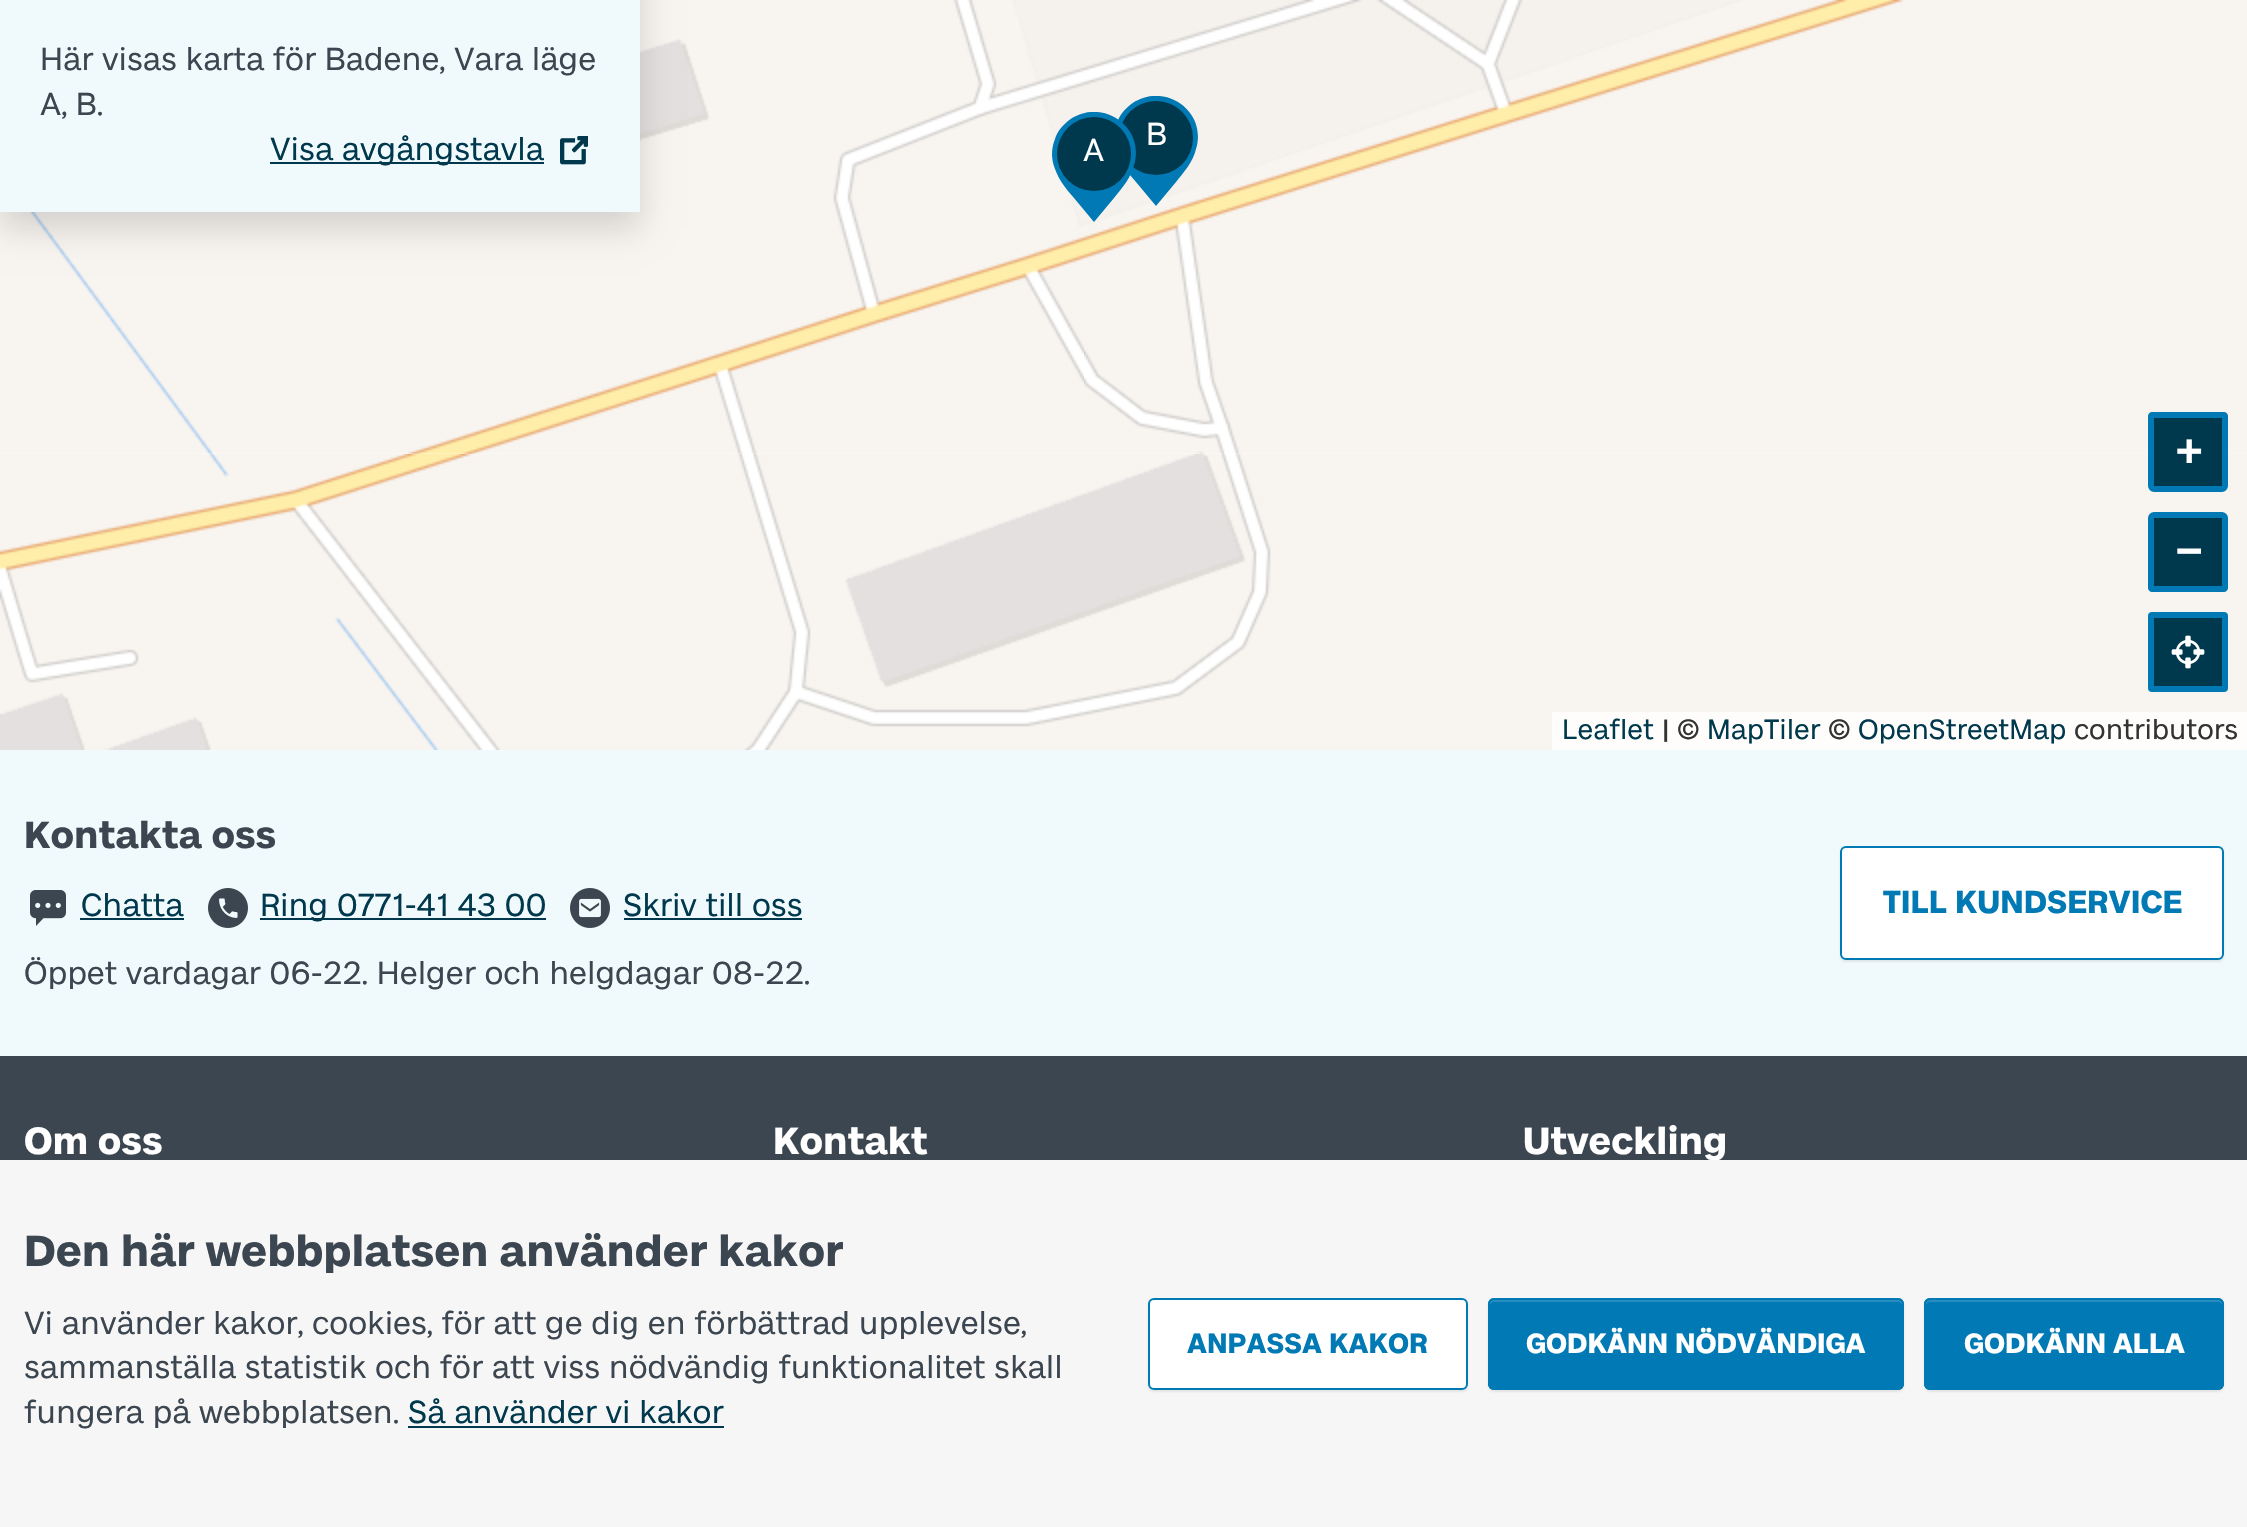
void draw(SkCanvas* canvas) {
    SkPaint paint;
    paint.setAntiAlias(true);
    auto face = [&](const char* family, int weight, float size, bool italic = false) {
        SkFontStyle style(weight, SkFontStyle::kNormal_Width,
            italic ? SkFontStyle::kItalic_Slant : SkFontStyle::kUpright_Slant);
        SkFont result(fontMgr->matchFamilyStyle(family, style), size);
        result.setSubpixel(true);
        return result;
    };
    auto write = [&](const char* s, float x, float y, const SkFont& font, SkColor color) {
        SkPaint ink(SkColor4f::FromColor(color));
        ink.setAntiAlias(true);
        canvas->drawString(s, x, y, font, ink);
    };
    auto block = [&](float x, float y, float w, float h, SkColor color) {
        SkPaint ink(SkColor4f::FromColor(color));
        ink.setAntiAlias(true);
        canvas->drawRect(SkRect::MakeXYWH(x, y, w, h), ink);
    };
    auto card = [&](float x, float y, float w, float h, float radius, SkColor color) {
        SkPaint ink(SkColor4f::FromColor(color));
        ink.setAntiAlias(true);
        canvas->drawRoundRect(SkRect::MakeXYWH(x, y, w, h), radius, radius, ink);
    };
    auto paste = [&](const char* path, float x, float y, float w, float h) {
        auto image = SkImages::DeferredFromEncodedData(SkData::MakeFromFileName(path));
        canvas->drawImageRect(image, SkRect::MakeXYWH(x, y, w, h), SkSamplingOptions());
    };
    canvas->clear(SK_ColorWHITE);
    paste("pic2.png", 0, 212, 60, 242);
    paste("pic3.png", 60, 212, 512, 242);
    paste("pic4.png", 572, 0, 512, 454);
    paint.setColor(SkColorSetARGB(38, 0, 0, 0));
    paint.setMaskFilter(SkMaskFilter::MakeBlur(kNormal_SkBlurStyle, 16));
    canvas->drawRect(SkRect::MakeXYWH(0, -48, 640, 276), paint);
    paint.setMaskFilter(nullptr);
    block(0, 0, 640, 212, SkColorSetRGB(240, 249, 252));
    auto kFont1 = face("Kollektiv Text", 400, 32);
    write("Här visas karta för Badene, Vara läge", 40, 70, kFont1, SkColorSetRGB(60, 70, 80));
    write("A, B.", 40, 115, kFont1, SkColorSetRGB(60, 70, 80));
    paste("pic1.png", 560, 136, 28, 29);
    block(270, 162, 274, 2, SkColorSetRGB(0, 57, 77));
    write("Visa avgångstavla", 270, 160, kFont1, SkColorSetRGB(0, 57, 77));
    paste("pic5.png", 1084, 0, 512, 454);
    paste("pic6.png", 1596, 0, 512, 454);
    paste("pic7.png", 2108, 0, 139, 454);
    paste("pic8.png", 0, 454, 60, 296);
    paste("pic9.png", 60, 454, 512, 296);
    paste("pic10.png", 572, 454, 512, 296);
    paste("pic11.png", 1084, 454, 512, 296);
    block(1596, 454, 651, 258, SkColorSetRGB(248, 244, 240));
    canvas->save();
    canvas->clipRect(SkRect::MakeXYWH(1114, 96, 84, 110));
    paint.setColor(SkColorSetRGB(0, 121, 180));
    canvas->drawPath(SkPathBuilder().moveTo(1156, 206).lineTo(1136, 182).cubicTo(1128, 173, 1121, 164, 1117, 153).cubicTo(1113, 143, 1113, 133, 1117, 123).cubicTo(1119, 116, 1124, 110, 1130, 105).cubicTo(1162, 80, 1208, 110, 1196, 149).cubicTo(1193, 162, 1184, 172, 1176, 182).close().detach(), paint);
    canvas->restore();
    paint.setColor(SkColorSetRGB(0, 57, 77));
    canvas->drawCircle(1156, 138, 37, paint);
    write("B", 1146, 145, kFont1, SK_ColorWHITE);
    canvas->save();
    canvas->clipRect(SkRect::MakeXYWH(1052, 112, 84, 110));
    paint.setColor(SkColorSetRGB(0, 121, 180));
    canvas->drawPath(SkPathBuilder().moveTo(1094, 222).lineTo(1074, 198).cubicTo(1066, 189, 1059, 180, 1055, 169).cubicTo(1051, 159, 1051, 149, 1055, 139).cubicTo(1057, 132, 1062, 126, 1068, 121).cubicTo(1100, 96, 1146, 126, 1134, 165).cubicTo(1131, 178, 1122, 188, 1114, 198).close().detach(), paint);
    canvas->restore();
    paint.setColor(SkColorSetRGB(0, 57, 77));
    canvas->drawCircle(1094, 154, 37, paint);
    write("A", 1083, 161, kFont1, SK_ColorWHITE);
    canvas->drawPath(SkPathBuilder().moveTo(2152, 415).lineTo(2224, 415).cubicTo(2224.5f, 415, 2225, 415.5f, 2225, 416).lineTo(2225, 486).cubicTo(2225, 487.5f, 2223.5f, 489, 2222, 489).lineTo(2154, 489).cubicTo(2152.5f, 489, 2151, 487.5f, 2151, 486).lineTo(2151, 416).cubicTo(2151, 415.5f, 2151.5f, 415, 2152, 415).close().detach(), paint);
    paint.setStyle(SkPaint::kStroke_Style);
    paint.setStrokeWidth(6);
    paint.setColor(SkColorSetRGB(0, 121, 180));
    canvas->drawPath(SkPathBuilder().moveTo(2152, 415).lineTo(2224, 415).cubicTo(2224.5f, 415, 2225, 415.5f, 2225, 416).lineTo(2225, 486).cubicTo(2225, 487.5f, 2223.5f, 489, 2222, 489).lineTo(2154, 489).cubicTo(2152.5f, 489, 2151, 487.5f, 2151, 486).lineTo(2151, 416).cubicTo(2151, 415.5f, 2151.5f, 415, 2152, 415).close().detach(), paint);
    auto kFont2 = face("DejaVu Sans Mono", 700, 44);
    write("+", 2176, 465, kFont2, SK_ColorWHITE);
    paint.setStyle(SkPaint::kFill_Style);
    paint.setColor(SkColorSetRGB(0, 57, 77));
    canvas->drawPath(SkPathBuilder().moveTo(2154, 515).lineTo(2222, 515).cubicTo(2223.5f, 515, 2225, 516.5f, 2225, 518).lineTo(2225, 588).cubicTo(2225, 588.5f, 2224.5f, 589, 2224, 589).lineTo(2152, 589).cubicTo(2151.5f, 589, 2151, 588.5f, 2151, 588).lineTo(2151, 518).cubicTo(2151, 516.5f, 2152.5f, 515, 2154, 515).close().detach(), paint);
    paint.setStyle(SkPaint::kStroke_Style);
    paint.setColor(SkColorSetRGB(0, 121, 180));
    canvas->drawPath(SkPathBuilder().moveTo(2154, 515).lineTo(2222, 515).cubicTo(2223.5f, 515, 2225, 516.5f, 2225, 518).lineTo(2225, 588).cubicTo(2225, 588.5f, 2224.5f, 589, 2224, 589).lineTo(2152, 589).cubicTo(2151.5f, 589, 2151, 588.5f, 2151, 588).lineTo(2151, 518).cubicTo(2151, 516.5f, 2152.5f, 515, 2154, 515).close().detach(), paint);
    write("−", 2176, 565, kFont2, SK_ColorWHITE);
    paint.setStyle(SkPaint::kFill_Style);
    paint.setColor(SkColorSetRGB(0, 57, 77));
    canvas->drawRoundRect(SkRect::MakeXYWH(2151, 615, 74, 74), 1, 1, paint);
    paint.setStyle(SkPaint::kStroke_Style);
    paint.setColor(SkColorSetRGB(0, 121, 180));
    canvas->drawRoundRect(SkRect::MakeXYWH(2151, 615, 74, 74), 1, 1, paint);
    paste("pic12.png", 2171, 635, 34, 34);
    block(1552, 712, 695, 38, SkColorSetRGB(254, 253, 252));
    auto kFont3 = face("Kollektiv Text", 400, 28);
    write("Leaflet", 1562, 739, kFont3, SkColorSetRGB(0, 57, 77));
    write("| ©", 1662, 739, kFont3, SkColorSetRGB(51, 51, 51));
    write("MapTiler", 1707, 739, kFont3, SkColorSetRGB(0, 57, 77));
    write("©", 1828, 739, kFont3, SkColorSetRGB(51, 51, 51));
    write("OpenStreetMap", 1858, 739, kFont3, SkColorSetRGB(0, 57, 77));
    write("contributors", 2074, 739, kFont3, SkColorSetRGB(51, 51, 51));
    block(0, 750, 2247, 306, SkColorSetRGB(240, 249, 252));
    auto kFont4 = face("Kollektiv Text", 700, 38);
    write("Kontakta oss", 24, 848, kFont4, SkColorSetRGB(60, 70, 80));
    paste("pic13.png", 30, 890, 36, 36);
    write("Chatta", 81, 916, kFont1, SkColorSetRGB(0, 57, 77));
    block(80, 918, 104, 2, SkColorSetRGB(0, 57, 77));
    paste("pic14.png", 208, 888, 40, 40);
    block(260, 918, 286, 2, SkColorSetRGB(0, 57, 77));
    write("Ring 0771-41 43 00", 260, 916, kFont1, SkColorSetRGB(0, 57, 77));
    paste("pic15.png", 570, 888, 40, 40);
    write("Skriv till oss", 623, 916, kFont1, SkColorSetRGB(0, 57, 77));
    block(624, 918, 178, 2, SkColorSetRGB(0, 57, 77));
    write("Öppet vardagar 06-22. Helger och helgdagar 08-22.", 24, 984, kFont1, SkColorSetRGB(60, 70, 80));
    paint.setStyle(SkPaint::kFill_Style);
    paint.setColor(SkColorSetARGB(18, 0, 0, 0));
    paint.setMaskFilter(SkMaskFilter::MakeBlur(kNormal_SkBlurStyle, 1));
    canvas->drawRoundRect(SkRect::MakeXYWH(1840, 848, 384, 114), 6, 6, paint);
    paint.setMaskFilter(nullptr);
    paint.setColor(SK_ColorWHITE);
    canvas->drawRoundRect(SkRect::MakeXYWH(1841, 847, 382, 112), 5, 5, paint);
    paint.setStyle(SkPaint::kStroke_Style);
    paint.setStrokeWidth(2);
    paint.setColor(SkColorSetRGB(0, 121, 180));
    canvas->drawRoundRect(SkRect::MakeXYWH(1841, 847, 382, 112), 5, 5, paint);
    auto kFont5 = face("Kollektiv Text", 700, 32);
    write("TILL KUNDSERVICE", 1883, 913, kFont5, SkColorSetRGB(0, 121, 180));
    block(0, 1056, 2247, 104, SkColorSetRGB(60, 70, 80));
    write("Om oss", 24, 1154, kFont4, SK_ColorWHITE);
    write("Kontakt", 773, 1154, kFont4, SK_ColorWHITE);
    write("Utveckling", 1523, 1154, kFont4, SK_ColorWHITE);
    block(0, 1160, 2247, 367, SkColorSetRGB(246, 246, 246));
    auto kFont6 = face("Kollektiv Text", 700, 43.75f);
    write("Den här webbplatsen använder kakor", 24, 1266, kFont6, SkColorSetRGB(60, 70, 80));
    write("Vi använder kakor, cookies, för att ge dig en förbättrad upplevelse,", 24, 1334, kFont1, SkColorSetRGB(60, 70, 80));
    write("sammanställa statistik och för att viss nödvändig funktionalitet skall", 24, 1378, kFont1, SkColorSetRGB(60, 70, 80));
    write("fungera på webbplatsen.", 24, 1423, kFont1, SkColorSetRGB(60, 70, 80));
    write("Så använder vi kakor", 408, 1423, kFont1, SkColorSetRGB(0, 57, 77));
    block(408, 1426, 316, 2, SkColorSetRGB(0, 57, 77));
    paint.setStyle(SkPaint::kFill_Style);
    paint.setColor(SkColorSetARGB(18, 0, 0, 0));
    paint.setMaskFilter(SkMaskFilter::MakeBlur(kNormal_SkBlurStyle, 1));
    canvas->drawRoundRect(SkRect::MakeXYWH(1148, 1300, 320, 92), 6, 6, paint);
    paint.setMaskFilter(nullptr);
    paint.setColor(SK_ColorWHITE);
    canvas->drawRoundRect(SkRect::MakeXYWH(1149, 1299, 318, 90), 5, 5, paint);
    paint.setStyle(SkPaint::kStroke_Style);
    paint.setColor(SkColorSetRGB(0, 121, 180));
    canvas->drawRoundRect(SkRect::MakeXYWH(1149, 1299, 318, 90), 5, 5, paint);
    auto kFont7 = face("Kollektiv Text", 700, 28);
    write("ANPASSA KAKOR", 1187, 1353, kFont7, SkColorSetRGB(0, 121, 180));
    paint.setStyle(SkPaint::kFill_Style);
    paint.setColor(SkColorSetARGB(18, 0, 0, 0));
    paint.setMaskFilter(SkMaskFilter::MakeBlur(kNormal_SkBlurStyle, 1));
    canvas->drawRoundRect(SkRect::MakeXYWH(1488, 1300, 416, 92), 6, 6, paint);
    paint.setMaskFilter(nullptr);
    card(1488, 1298, 416, 92, 6, SkColorSetRGB(0, 121, 180));
    paint.setColor(SkColorSetRGB(38, 141, 191));
    canvas->drawPath(SkPathBuilder().moveTo(1494, 1302).lineTo(1898, 1302).cubicTo(1900, 1302, 1902, 1304, 1902, 1306).cubicTo(1902, 1303, 1902, 1300, 1898, 1300).lineTo(1494, 1300).cubicTo(1490, 1300, 1490, 1303, 1490, 1306).cubicTo(1490, 1304, 1492, 1302, 1494, 1302).close().detach(), paint);
    paint.setStyle(SkPaint::kStroke_Style);
    paint.setColor(SkColorSetRGB(0, 121, 180));
    canvas->drawRoundRect(SkRect::MakeXYWH(1489, 1299, 414, 90), 5, 5, paint);
    write("GODKÄNN NÖDVÄNDIGA", 1526, 1353, kFont7, SK_ColorWHITE);
    paint.setStyle(SkPaint::kFill_Style);
    paint.setColor(SkColorSetARGB(18, 0, 0, 0));
    paint.setMaskFilter(SkMaskFilter::MakeBlur(kNormal_SkBlurStyle, 1));
    canvas->drawRoundRect(SkRect::MakeXYWH(1924, 1300, 300, 92), 6, 6, paint);
    paint.setMaskFilter(nullptr);
    card(1924, 1298, 300, 92, 6, SkColorSetRGB(0, 121, 180));
    paint.setColor(SkColorSetRGB(38, 141, 191));
    canvas->drawPath(SkPathBuilder().moveTo(1930, 1302).lineTo(2218, 1302).cubicTo(2220, 1302, 2222, 1304, 2222, 1306).lineTo(2222, 1304).cubicTo(2222, 1302, 2220, 1300, 2218, 1300).lineTo(1930, 1300).cubicTo(1928, 1300, 1926, 1302, 1926, 1304).lineTo(1926, 1306).cubicTo(1926, 1304, 1928, 1302, 1930, 1302).close().detach(), paint);
    paint.setStyle(SkPaint::kStroke_Style);
    paint.setColor(SkColorSetRGB(0, 121, 180));
    canvas->drawRoundRect(SkRect::MakeXYWH(1925, 1299, 298, 90), 5, 5, paint);
    write("GODKÄNN ALLA", 1964, 1353, kFont7, SK_ColorWHITE);
}
